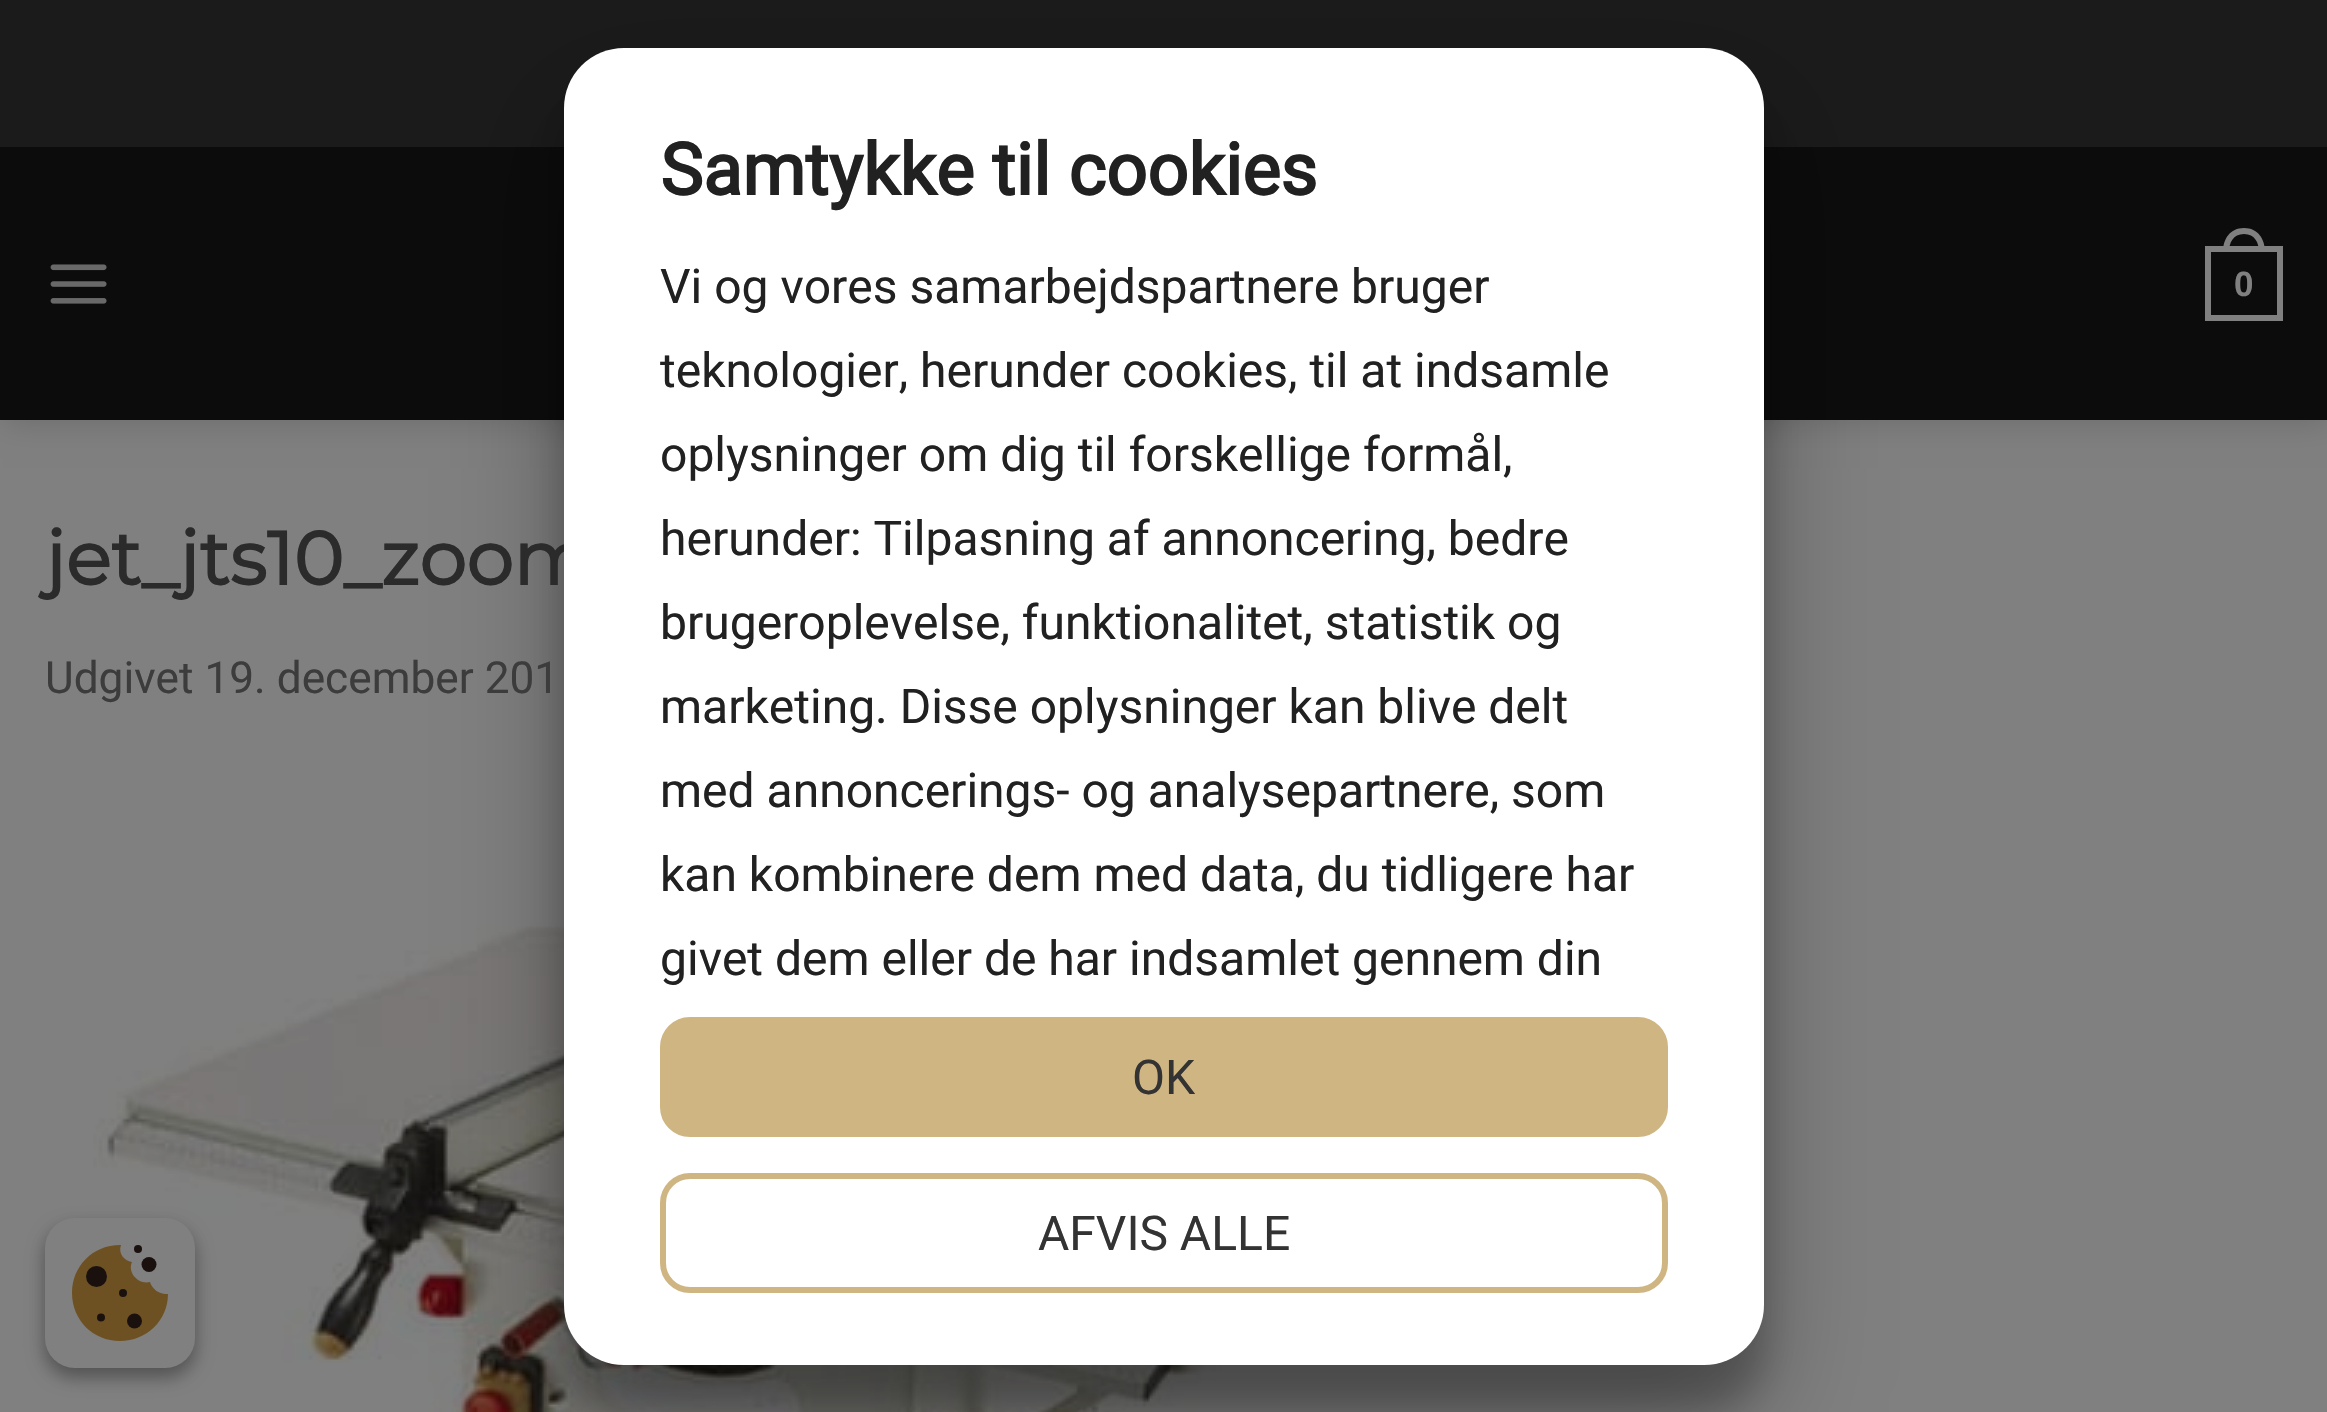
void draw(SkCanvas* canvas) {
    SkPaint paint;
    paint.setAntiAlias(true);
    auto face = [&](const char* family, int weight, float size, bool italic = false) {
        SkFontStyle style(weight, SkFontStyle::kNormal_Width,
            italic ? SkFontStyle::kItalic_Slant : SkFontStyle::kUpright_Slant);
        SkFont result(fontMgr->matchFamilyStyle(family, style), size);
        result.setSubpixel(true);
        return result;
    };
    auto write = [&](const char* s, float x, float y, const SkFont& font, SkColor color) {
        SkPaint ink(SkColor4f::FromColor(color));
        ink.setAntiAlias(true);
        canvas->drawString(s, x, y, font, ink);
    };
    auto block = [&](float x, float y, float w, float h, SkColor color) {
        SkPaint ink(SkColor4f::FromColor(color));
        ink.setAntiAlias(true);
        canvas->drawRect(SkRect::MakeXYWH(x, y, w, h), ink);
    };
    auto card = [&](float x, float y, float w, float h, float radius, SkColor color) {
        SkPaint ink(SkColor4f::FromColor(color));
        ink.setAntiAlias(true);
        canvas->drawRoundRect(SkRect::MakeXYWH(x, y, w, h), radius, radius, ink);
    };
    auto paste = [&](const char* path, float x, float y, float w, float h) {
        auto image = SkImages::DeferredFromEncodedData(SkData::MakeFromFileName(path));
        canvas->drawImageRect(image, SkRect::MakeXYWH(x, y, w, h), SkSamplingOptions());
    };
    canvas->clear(SkColorSetRGB(128, 128, 128));
    paint.setColor(SkColorSetARGB(38, 0, 0, 0));
    paint.setMaskFilter(SkMaskFilter::MakeBlur(kNormal_SkBlurStyle, 15));
    canvas->drawRect(SkRect::MakeXYWH(3, 3, 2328, 420), paint);
    paint.setMaskFilter(nullptr);
    block(0, 0, 2327, 147, SkColorSetRGB(27, 27, 27));
    block(0, 147, 2327, 273, SkColorSetRGB(12, 12, 12));
    paste("pic2.png", 93, 785, 1397, 627);
    paint.setColor(SkColorSetARGB(56, 0, 0, 0));
    paint.setMaskFilter(SkMaskFilter::MakeBlur(kNormal_SkBlurStyle, 18));
    canvas->drawRoundRect(SkRect::MakeXYWH(564, 93, 1200, 1317), 60, 60, paint);
    paint.setMaskFilter(nullptr);
    paint.setColor(SkColorSetARGB(77, 0, 0, 0));
    paint.setMaskFilter(SkMaskFilter::MakeBlur(kNormal_SkBlurStyle, 57));
    canvas->drawRoundRect(SkRect::MakeXYWH(564, 105, 1200, 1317), 60, 60, paint);
    paint.setMaskFilter(nullptr);
    auto kFont1 = face("Montserrat", 700, 75);
    write("jet_jts10_zoom", 45, 585, kFont1, SkColorSetRGB(43, 43, 43));
    card(564, 48, 1200, 1317, 60, SK_ColorWHITE);
    auto kFont2 = face("Roboto", 700, 72);
    write("Samtykke til cookies", 660, 195, kFont2, SkColorSetRGB(33, 33, 33));
    auto kFont3 = face("Roboto", 400, 48);
    write("Vi og vores samarbejdspartnere bruger", 660, 303, kFont3, SkColorSetRGB(33, 33, 33));
    write("teknologier, herunder cookies, til at indsamle", 660, 387, kFont3, SkColorSetRGB(33, 33, 33));
    write("oplysninger om dig til forskellige formål,", 660, 471, kFont3, SkColorSetRGB(33, 33, 33));
    write("herunder: Tilpasning af annoncering, bedre", 660, 555, kFont3, SkColorSetRGB(33, 33, 33));
    write("brugeroplevelse, funktionalitet, statistik og", 660, 639, kFont3, SkColorSetRGB(33, 33, 33));
    write("marketing. Disse oplysninger kan blive delt", 660, 723, kFont3, SkColorSetRGB(33, 33, 33));
    write("med annoncerings- og analysepartnere, som", 660, 807, kFont3, SkColorSetRGB(33, 33, 33));
    write("kan kombinere dem med data, du tidligere har", 660, 891, kFont3, SkColorSetRGB(33, 33, 33));
    write("givet dem eller de har indsamlet gennem din", 660, 975, kFont3, SkColorSetRGB(33, 33, 33));
    paint.setColor(SkColorSetRGB(206, 181, 130));
    canvas->drawRoundRect(SkRect::MakeXYWH(663, 1020, 1002, 114), 27, 27, paint);
    paint.setStyle(SkPaint::kStroke_Style);
    paint.setStrokeWidth(6);
    canvas->drawRoundRect(SkRect::MakeXYWH(663, 1020, 1002, 114), 27, 27, paint);
    write("OK", 1132, 1094, kFont3, SkColorSetRGB(51, 51, 51));
    canvas->drawRoundRect(SkRect::MakeXYWH(663, 1176, 1002, 114), 27, 27, paint);
    write("AFVIS ALLE", 1038, 1250, kFont3, SkColorSetRGB(51, 51, 51));
    paste("pic1.png", 50, 264, 57, 40);
    paint.setColor(SkColorSetRGB(128, 128, 128));
    canvas->drawRect(SkRect::MakeXYWH(2208, 249, 72, 69), paint);
    paint.setStyle(SkPaint::kFill_Style);
    canvas->drawPath(SkPathBuilder(SkPathFillType::kEvenOdd).moveTo(2244, 228).cubicTo(2258, 228, 2265, 239, 2265, 252).lineTo(2223, 252).cubicTo(2223, 239, 2230, 228, 2244, 228).close().moveTo(2244, 234).cubicTo(2255, 234, 2259, 243, 2259, 252).lineTo(2229, 252).cubicTo(2229, 243, 2233, 234, 2244, 234).close().detach(), paint);
    auto kFont4 = face("Liberation Sans", 700, 35);
    write("0", 2234, 296, kFont4, SkColorSetRGB(128, 128, 128));
    auto kFont5 = face("Roboto", 400, 44.2f);
    write("Udgivet 19. december 201", 45, 693, kFont5, SkColorSetRGB(60, 60, 60));
    paint.setColor(SkColorSetARGB(59, 0, 0, 0));
    paint.setMaskFilter(SkMaskFilter::MakeBlur(kNormal_SkBlurStyle, 9));
    canvas->drawRoundRect(SkRect::MakeXYWH(45, 1227, 150, 150), 30, 30, paint);
    paint.setMaskFilter(nullptr);
    paint.setColor(SkColorSetARGB(41, 0, 0, 0));
    paint.setMaskFilter(SkMaskFilter::MakeBlur(kNormal_SkBlurStyle, 9));
    canvas->drawRoundRect(SkRect::MakeXYWH(45, 1227, 150, 150), 30, 30, paint);
    paint.setMaskFilter(nullptr);
    card(45, 1218, 150, 150, 30, SkColorSetRGB(128, 128, 128));
    paint.setColor(SkColorSetRGB(109, 81, 35));
    canvas->drawPath(SkPathBuilder().moveTo(166, 1294).cubicTo(159, 1294, 152, 1289, 150, 1282).cubicTo(139, 1285, 127, 1273, 132, 1262).cubicTo(124, 1261, 118, 1253, 121, 1245).lineTo(120, 1245).cubicTo(93, 1245, 72, 1266, 72, 1293).cubicTo(72, 1320, 93, 1341, 120, 1341).cubicTo(147, 1341, 168, 1320, 168, 1294).close().detach(), paint);
    paint.setColor(SkColorSetRGB(26, 16, 13));
    canvas->drawCircle(149, 1264.5f, 7.5f, paint);
    canvas->drawCircle(134.5f, 1321, 7.5f, paint);
    canvas->drawCircle(96.5f, 1276.5f, 10.5f, paint);
    canvas->drawCircle(138, 1249, 4, paint);
    canvas->drawCircle(123, 1293, 4, paint);
    canvas->drawCircle(101, 1317.5f, 4, paint);
}
